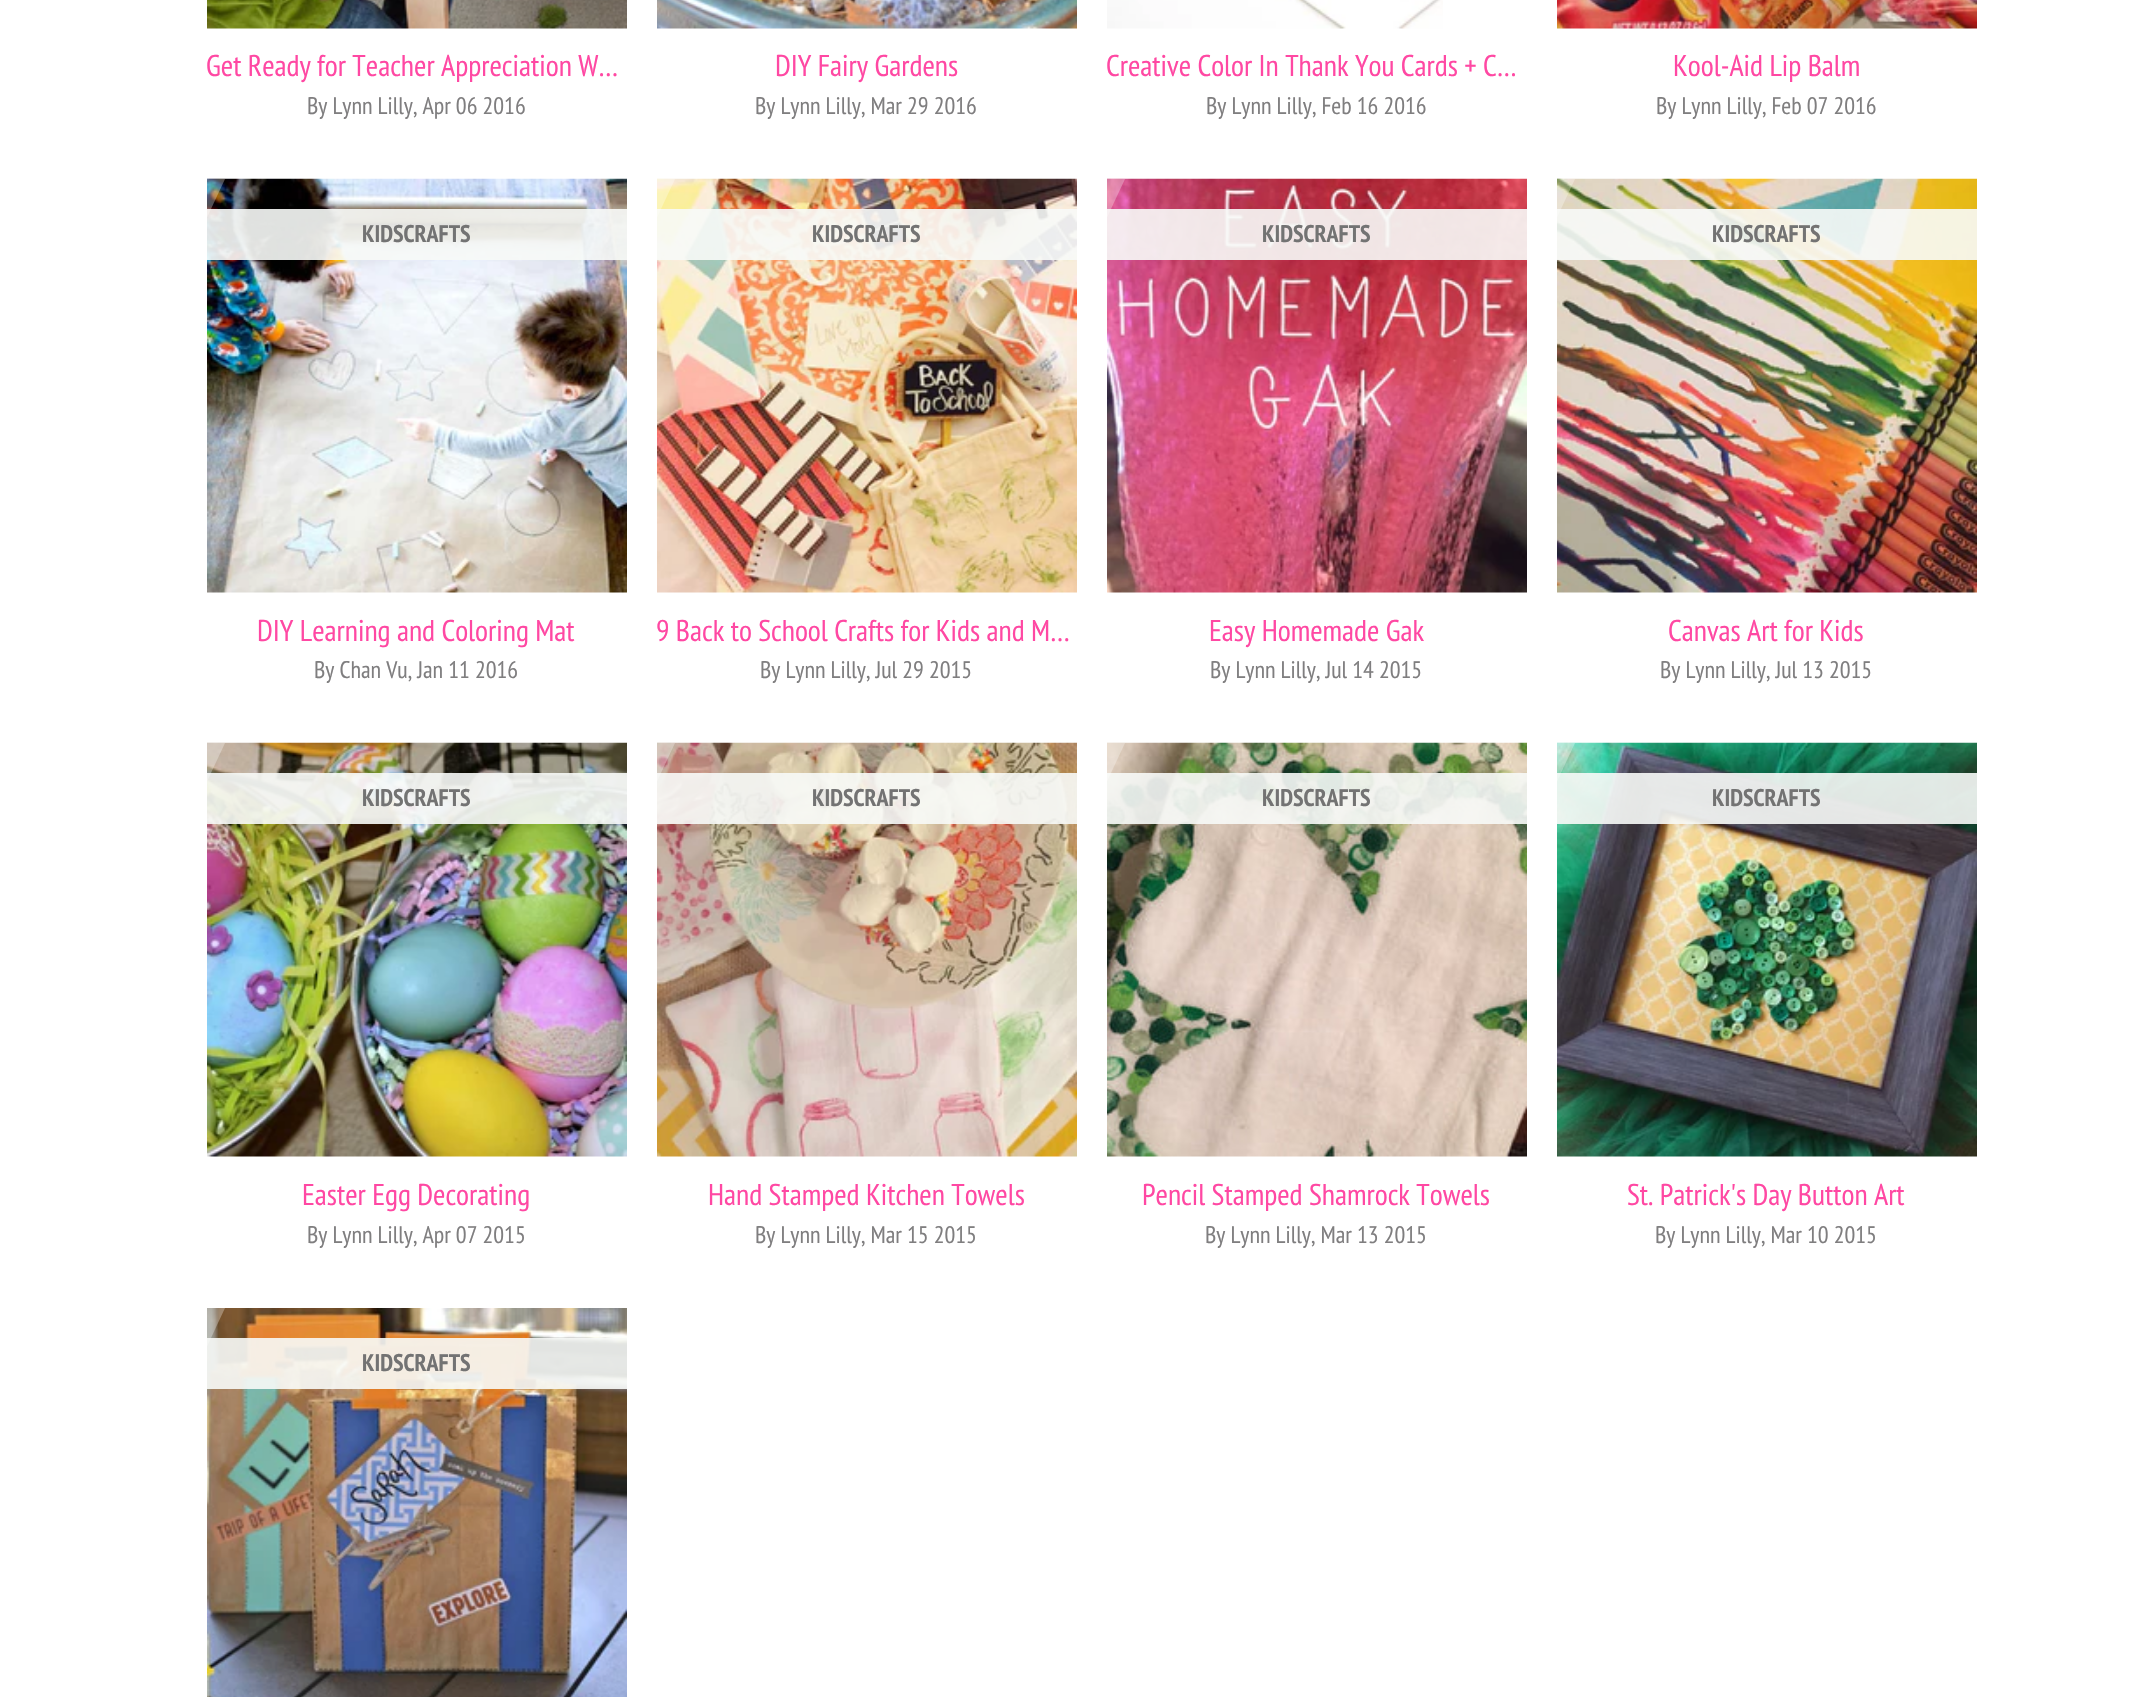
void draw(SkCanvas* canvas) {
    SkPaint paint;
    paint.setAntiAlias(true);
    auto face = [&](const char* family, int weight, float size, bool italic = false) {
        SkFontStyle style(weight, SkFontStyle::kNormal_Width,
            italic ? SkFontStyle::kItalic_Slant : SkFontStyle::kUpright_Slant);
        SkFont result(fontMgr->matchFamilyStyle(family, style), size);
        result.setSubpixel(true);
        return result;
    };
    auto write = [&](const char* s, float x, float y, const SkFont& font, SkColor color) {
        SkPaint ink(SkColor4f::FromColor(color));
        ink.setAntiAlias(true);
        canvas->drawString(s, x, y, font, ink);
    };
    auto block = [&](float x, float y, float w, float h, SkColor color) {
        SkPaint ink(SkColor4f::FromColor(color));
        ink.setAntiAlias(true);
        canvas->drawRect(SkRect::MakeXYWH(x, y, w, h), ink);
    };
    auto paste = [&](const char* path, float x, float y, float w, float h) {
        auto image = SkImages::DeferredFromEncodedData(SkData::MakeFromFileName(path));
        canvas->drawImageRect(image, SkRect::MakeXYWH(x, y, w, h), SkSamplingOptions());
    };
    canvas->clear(SK_ColorWHITE);
    paste("pic1.png", 207, 0, 420, 29);
    auto kFont1 = face("PT Sans Narrow", 400, 30);
    write("Get Ready for Teacher Appreciation W…", 206, 76, kFont1, SkColorSetRGB(255, 72, 163));
    auto kFont2 = face("PT Sans Narrow", 400, 24);
    write("By Lynn Lilly, Apr 06 2016", 307, 114, kFont2, SkColorSetRGB(127, 126, 127));
    paste("pic2.png", 657, 0, 420, 29);
    write("DIY Fairy Gardens", 775, 76, kFont1, SkColorSetRGB(255, 72, 163));
    write("By Lynn Lilly, Mar 29 2016", 755, 114, kFont2, SkColorSetRGB(127, 126, 127));
    paste("pic3.png", 1107, 0, 336, 29);
    write("Creative Color In Thank You Cards + C…", 1106, 76, kFont1, SkColorSetRGB(255, 72, 163));
    write("By Lynn Lilly, Feb 16 2016", 1206, 114, kFont2, SkColorSetRGB(127, 126, 127));
    paste("pic4.png", 1557, 0, 420, 29);
    write("Kool-Aid Lip Balm", 1673, 76, kFont1, SkColorSetRGB(255, 72, 163));
    write("By Lynn Lilly, Feb 07 2016", 1656, 114, kFont2, SkColorSetRGB(127, 126, 127));
    paste("pic5.png", 207, 178, 420, 415);
    block(207, 209, 420, 51, SkColorSetARGB(230, 247, 249, 247));
    canvas->save();
    canvas->clipRect(SkRect::MakeXYWH(207, 179, 420, 529));
    {
        const SkColor colors[] = {SkColorSetARGB(0, 255, 255, 255), SkColorSetARGB(77, 255, 255, 255)};
        const float stops[] = {0, 1};
        const SkPoint ends[] = {{-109, 443}, {101, 443}};
        paint.setShader(SkGradientShader::MakeLinear(ends, colors, stops, 2, SkTileMode::kClamp));
        paint.setAlpha(255);
    }
    canvas->drawPath(SkPathBuilder().moveTo(15, 179).lineTo(225, 179).lineTo(-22, 707).lineTo(-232, 707).close().detach(), paint);
    canvas->restore();
    auto kFont3 = face("PT Sans Narrow", 700, 24);
    write("KIDSCRAFTS", 362, 242, kFont3, SkColorSetRGB(115, 115, 115));
    write("DIY Learning and Coloring Mat", 257, 641, kFont1, SkColorSetRGB(255, 72, 163));
    write("By Chan Vu, Jan 11 2016", 314, 678, kFont2, SkColorSetRGB(127, 126, 127));
    paste("pic6.png", 657, 178, 420, 415);
    block(657, 209, 420, 51, SkColorSetARGB(230, 247, 249, 247));
    canvas->save();
    canvas->clipRect(SkRect::MakeXYWH(657, 179, 420, 529));
    {
        const SkColor colors[] = {SkColorSetARGB(0, 255, 255, 255), SkColorSetARGB(77, 255, 255, 255)};
        const float stops[] = {0, 1};
        const SkPoint ends[] = {{341, 443}, {551, 443}};
        paint.setShader(SkGradientShader::MakeLinear(ends, colors, stops, 2, SkTileMode::kClamp));
        paint.setAlpha(255);
    }
    canvas->drawPath(SkPathBuilder().moveTo(465, 179).lineTo(675, 179).lineTo(428, 707).lineTo(218, 707).close().detach(), paint);
    canvas->restore();
    write("KIDSCRAFTS", 812, 242, kFont3, SkColorSetRGB(115, 115, 115));
    write("9 Back to School Crafts for Kids and M…", 656, 641, kFont1, SkColorSetRGB(255, 72, 163));
    write("By Lynn Lilly, Jul 29 2015", 760, 678, kFont2, SkColorSetRGB(127, 126, 127));
    paste("pic7.png", 1107, 178, 420, 415);
    block(1107, 209, 420, 51, SkColorSetARGB(230, 247, 249, 247));
    canvas->save();
    canvas->clipRect(SkRect::MakeXYWH(1107, 179, 420, 529));
    {
        const SkColor colors[] = {SkColorSetARGB(0, 255, 255, 255), SkColorSetARGB(77, 255, 255, 255)};
        const float stops[] = {0, 1};
        const SkPoint ends[] = {{791, 443}, {1001, 443}};
        paint.setShader(SkGradientShader::MakeLinear(ends, colors, stops, 2, SkTileMode::kClamp));
        paint.setAlpha(255);
    }
    canvas->drawPath(SkPathBuilder().moveTo(915, 179).lineTo(1125, 179).lineTo(878, 707).lineTo(668, 707).close().detach(), paint);
    canvas->restore();
    write("KIDSCRAFTS", 1262, 242, kFont3, SkColorSetRGB(115, 115, 115));
    write("Easy Homemade Gak", 1209, 641, kFont1, SkColorSetRGB(255, 72, 163));
    write("By Lynn Lilly, Jul 14 2015", 1210, 678, kFont2, SkColorSetRGB(127, 126, 127));
    paste("pic8.png", 1557, 178, 420, 415);
    block(1557, 209, 420, 51, SkColorSetARGB(230, 247, 249, 247));
    canvas->save();
    canvas->clipRect(SkRect::MakeXYWH(1557, 179, 420, 529));
    {
        const SkColor colors[] = {SkColorSetARGB(0, 255, 255, 255), SkColorSetARGB(77, 255, 255, 255)};
        const float stops[] = {0, 1};
        const SkPoint ends[] = {{1241, 443}, {1451, 443}};
        paint.setShader(SkGradientShader::MakeLinear(ends, colors, stops, 2, SkTileMode::kClamp));
        paint.setAlpha(255);
    }
    canvas->drawPath(SkPathBuilder().moveTo(1365, 179).lineTo(1575, 179).lineTo(1328, 707).lineTo(1118, 707).close().detach(), paint);
    canvas->restore();
    write("KIDSCRAFTS", 1712, 242, kFont3, SkColorSetRGB(115, 115, 115));
    write("Canvas Art for Kids", 1668, 641, kFont1, SkColorSetRGB(255, 72, 163));
    write("By Lynn Lilly, Jul 13 2015", 1660, 678, kFont2, SkColorSetRGB(127, 126, 127));
    paste("pic9.png", 207, 742, 420, 415);
    block(207, 773, 420, 51, SkColorSetARGB(230, 247, 249, 247));
    canvas->save();
    canvas->clipRect(SkRect::MakeXYWH(207, 743, 420, 529));
    {
        const SkColor colors[] = {SkColorSetARGB(0, 255, 255, 255), SkColorSetARGB(77, 255, 255, 255)};
        const float stops[] = {0, 1};
        const SkPoint ends[] = {{-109, 1008}, {101, 1008}};
        paint.setShader(SkGradientShader::MakeLinear(ends, colors, stops, 2, SkTileMode::kClamp));
        paint.setAlpha(255);
    }
    canvas->drawPath(SkPathBuilder().moveTo(15, 743).lineTo(225, 743).lineTo(-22, 1272).lineTo(-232, 1272).close().detach(), paint);
    canvas->restore();
    write("KIDSCRAFTS", 362, 806, kFont3, SkColorSetRGB(115, 115, 115));
    write("Easter Egg Decorating", 302, 1205, kFont1, SkColorSetRGB(255, 72, 163));
    write("By Lynn Lilly, Apr 07 2015", 307, 1243, kFont2, SkColorSetRGB(127, 126, 127));
    paste("pic10.png", 657, 742, 420, 415);
    block(657, 773, 420, 51, SkColorSetARGB(230, 247, 249, 247));
    canvas->save();
    canvas->clipRect(SkRect::MakeXYWH(657, 743, 420, 529));
    {
        const SkColor colors[] = {SkColorSetARGB(0, 255, 255, 255), SkColorSetARGB(77, 255, 255, 255)};
        const float stops[] = {0, 1};
        const SkPoint ends[] = {{341, 1008}, {551, 1008}};
        paint.setShader(SkGradientShader::MakeLinear(ends, colors, stops, 2, SkTileMode::kClamp));
        paint.setAlpha(255);
    }
    canvas->drawPath(SkPathBuilder().moveTo(465, 743).lineTo(675, 743).lineTo(428, 1272).lineTo(218, 1272).close().detach(), paint);
    canvas->restore();
    write("KIDSCRAFTS", 812, 806, kFont3, SkColorSetRGB(115, 115, 115));
    write("Hand Stamped Kitchen Towels", 708, 1205, kFont1, SkColorSetRGB(255, 72, 163));
    write("By Lynn Lilly, Mar 15 2015", 755, 1243, kFont2, SkColorSetRGB(127, 126, 127));
    paste("pic11.png", 1107, 742, 420, 415);
    block(1107, 773, 420, 51, SkColorSetARGB(230, 247, 249, 247));
    canvas->save();
    canvas->clipRect(SkRect::MakeXYWH(1107, 743, 420, 529));
    {
        const SkColor colors[] = {SkColorSetARGB(0, 255, 255, 255), SkColorSetARGB(77, 255, 255, 255)};
        const float stops[] = {0, 1};
        const SkPoint ends[] = {{791, 1008}, {1001, 1008}};
        paint.setShader(SkGradientShader::MakeLinear(ends, colors, stops, 2, SkTileMode::kClamp));
        paint.setAlpha(255);
    }
    canvas->drawPath(SkPathBuilder().moveTo(915, 743).lineTo(1125, 743).lineTo(878, 1272).lineTo(668, 1272).close().detach(), paint);
    canvas->restore();
    write("KIDSCRAFTS", 1262, 806, kFont3, SkColorSetRGB(115, 115, 115));
    write("Pencil Stamped Shamrock Towels", 1142, 1205, kFont1, SkColorSetRGB(255, 72, 163));
    write("By Lynn Lilly, Mar 13 2015", 1205, 1243, kFont2, SkColorSetRGB(127, 126, 127));
    paste("pic12.png", 1557, 742, 420, 415);
    block(1557, 773, 420, 51, SkColorSetARGB(230, 247, 249, 247));
    canvas->save();
    canvas->clipRect(SkRect::MakeXYWH(1557, 743, 420, 529));
    {
        const SkColor colors[] = {SkColorSetARGB(0, 255, 255, 255), SkColorSetARGB(77, 255, 255, 255)};
        const float stops[] = {0, 1};
        const SkPoint ends[] = {{1241, 1008}, {1451, 1008}};
        paint.setShader(SkGradientShader::MakeLinear(ends, colors, stops, 2, SkTileMode::kClamp));
        paint.setAlpha(255);
    }
    canvas->drawPath(SkPathBuilder().moveTo(1365, 743).lineTo(1575, 743).lineTo(1328, 1272).lineTo(1118, 1272).close().detach(), paint);
    canvas->restore();
    write("KIDSCRAFTS", 1712, 806, kFont3, SkColorSetRGB(115, 115, 115));
    write("St. Patrick's Day Button Art", 1627, 1205, kFont1, SkColorSetRGB(255, 72, 163));
    write("By Lynn Lilly, Mar 10 2015", 1655, 1243, kFont2, SkColorSetRGB(127, 126, 127));
    paste("pic13.png", 207, 1308, 420, 389);
    block(207, 1338, 420, 51, SkColorSetARGB(230, 247, 249, 247));
    canvas->save();
    canvas->clipRect(SkRect::MakeXYWH(207, 1308, 420, 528));
    {
        const SkColor colors[] = {SkColorSetARGB(0, 255, 255, 255), SkColorSetARGB(77, 255, 255, 255)};
        const float stops[] = {0, 1};
        const SkPoint ends[] = {{-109, 1572}, {101, 1572}};
        paint.setShader(SkGradientShader::MakeLinear(ends, colors, stops, 2, SkTileMode::kClamp));
        paint.setAlpha(255);
    }
    canvas->drawPath(SkPathBuilder().moveTo(15, 1308).lineTo(225, 1308).lineTo(-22, 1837).lineTo(-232, 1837).close().detach(), paint);
    canvas->restore();
    write("KIDSCRAFTS", 362, 1371, kFont3, SkColorSetRGB(115, 115, 115));
}
